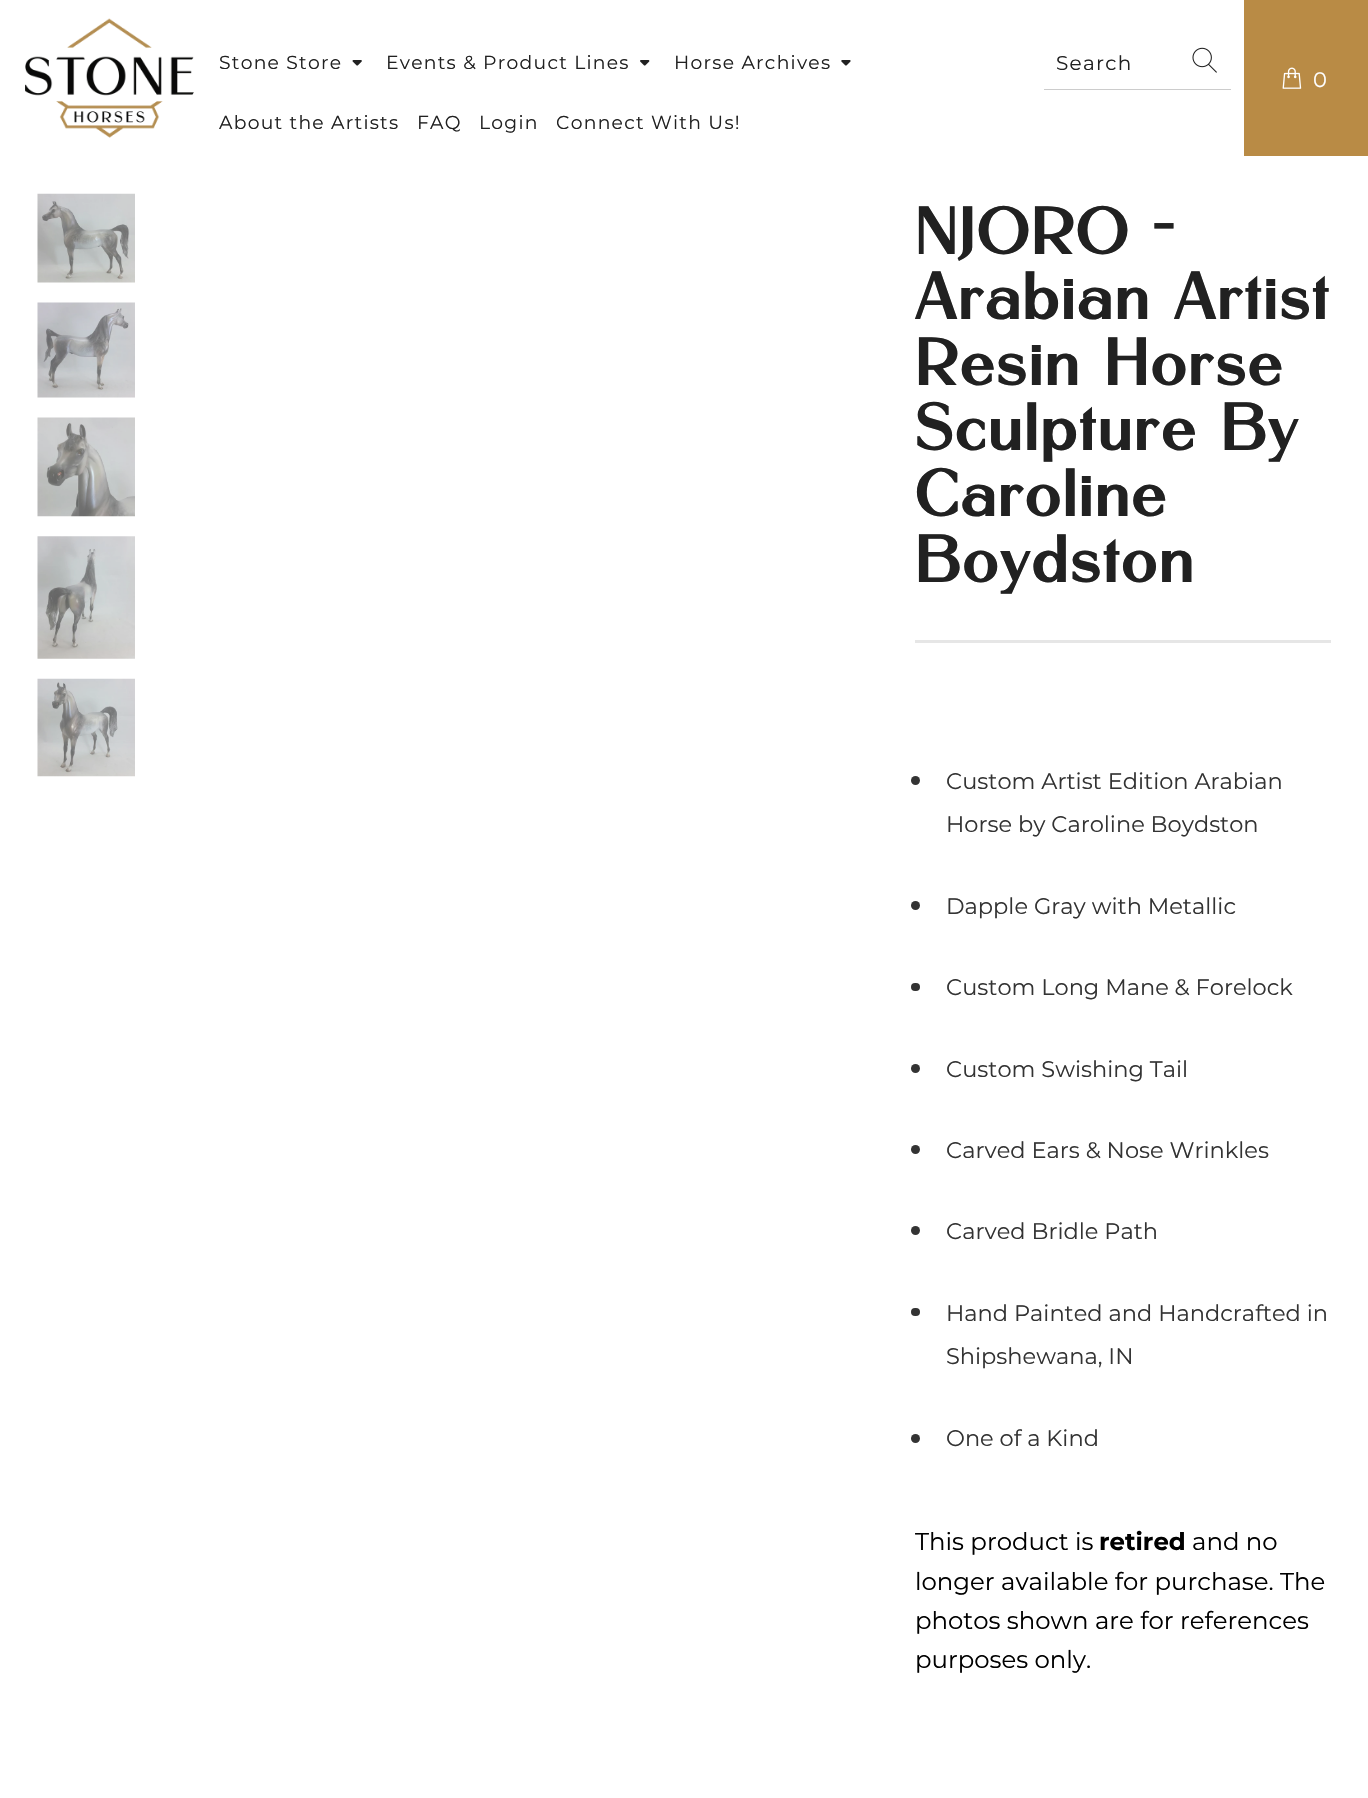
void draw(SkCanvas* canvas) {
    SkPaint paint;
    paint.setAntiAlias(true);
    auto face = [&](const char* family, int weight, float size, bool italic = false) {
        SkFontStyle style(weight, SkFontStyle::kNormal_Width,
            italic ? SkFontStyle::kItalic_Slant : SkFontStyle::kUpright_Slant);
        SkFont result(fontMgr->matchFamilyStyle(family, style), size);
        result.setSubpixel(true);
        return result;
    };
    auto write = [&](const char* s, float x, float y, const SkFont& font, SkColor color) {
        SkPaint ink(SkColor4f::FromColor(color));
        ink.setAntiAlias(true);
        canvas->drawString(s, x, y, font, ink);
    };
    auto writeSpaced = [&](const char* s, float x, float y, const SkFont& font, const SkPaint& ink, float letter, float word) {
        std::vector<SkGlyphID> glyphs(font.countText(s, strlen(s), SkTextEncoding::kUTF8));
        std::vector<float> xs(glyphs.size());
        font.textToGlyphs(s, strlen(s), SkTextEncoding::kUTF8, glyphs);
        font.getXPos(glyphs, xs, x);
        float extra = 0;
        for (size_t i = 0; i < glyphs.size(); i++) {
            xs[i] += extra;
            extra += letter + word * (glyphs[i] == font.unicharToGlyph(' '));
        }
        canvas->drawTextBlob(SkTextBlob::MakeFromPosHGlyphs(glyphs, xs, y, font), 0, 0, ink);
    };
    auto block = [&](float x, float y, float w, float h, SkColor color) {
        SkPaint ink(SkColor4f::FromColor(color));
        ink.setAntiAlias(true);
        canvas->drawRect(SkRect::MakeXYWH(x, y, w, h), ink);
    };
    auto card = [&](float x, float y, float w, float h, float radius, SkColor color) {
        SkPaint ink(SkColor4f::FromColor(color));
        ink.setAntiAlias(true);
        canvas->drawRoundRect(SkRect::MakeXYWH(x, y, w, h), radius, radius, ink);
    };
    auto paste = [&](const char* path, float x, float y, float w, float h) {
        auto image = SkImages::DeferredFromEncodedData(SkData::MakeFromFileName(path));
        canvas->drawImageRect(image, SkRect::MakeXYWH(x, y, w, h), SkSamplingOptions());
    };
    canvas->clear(SK_ColorWHITE);
    paste("pic1.png", 25, 18, 169, 120);
    auto kFont1 = face("Montserrat", 400, 18.75f);
    paint.setColor(SkColorSetRGB(33, 33, 33));
    writeSpaced("Stone Store", 219, 69, kFont1, paint, 1.25f, 0);
    paste("pic2.png", 352, 60, 10, 6);
    writeSpaced("Events & Product Lines", 386, 69, kFont1, paint, 1.25f, 0);
    paste("pic3.png", 640, 60, 10, 6);
    writeSpaced("Horse Archives", 674, 69, kFont1, paint, 1.25f, 0);
    paste("pic4.png", 841, 60, 10, 6);
    writeSpaced("About the Artists", 219, 129, kFont1, paint, 1.25f, 0);
    writeSpaced("FAQ", 417, 129, kFont1, paint, 1.25f, 0);
    writeSpaced("Login", 479, 129, kFont1, paint, 1.25f, 0);
    writeSpaced("Connect With Us!", 556, 129, kFont1, paint, 1.25f, 0);
    block(1044, 89, 187, 1, SkColorSetRGB(204, 204, 204));
    auto kFont2 = face("Montserrat", 400, 20);
    writeSpaced("Search", 1056, 70, kFont2, paint, 1.25f, 0);
    paste("pic5.png", 1192, 47, 25, 26);
    block(1244, 0, 124, 156, SkColorSetRGB(185, 139, 69));
    paste("pic6.png", 1282, 67, 20, 22);
    auto kFont3 = face("Montserrat", 400, 21);
    paint.setColor(SK_ColorWHITE);
    writeSpaced("0", 1313, 87, kFont3, paint, 1.25f, 0);
    paste("pic7.png", 37, 193, 98, 90);
    paste("pic8.png", 37, 302, 98, 96);
    paste("pic9.png", 37, 417, 98, 100);
    paste("pic10.png", 37, 536, 98, 123);
    paste("pic11.png", 37, 678, 98, 99);
    auto kFont4 = face("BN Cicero", 700, 65.5f);
    paint.setColor(SkColorSetRGB(33, 33, 33));
    writeSpaced("NJORO -", 915, 254, kFont4, paint, 2.5f, 0);
    writeSpaced("Arabian Artist", 915, 319, kFont4, paint, 2.5f, 0);
    writeSpaced("Resin Horse", 915, 385, kFont4, paint, 2.5f, 0);
    writeSpaced("Sculpture By", 915, 450, kFont4, paint, 2.5f, 0);
    writeSpaced("Caroline", 915, 516, kFont4, paint, 2.5f, 0);
    writeSpaced("Boydston", 915, 582, kFont4, paint, 2.5f, 0);
    block(915, 640, 416, 3, SkColorSetRGB(230, 230, 230));
    paint.setColor(SkColorSetRGB(51, 51, 51));
    canvas->drawCircle(915.5f, 780.5f, 4.5f, paint);
    auto kFont5 = face("Montserrat", 400, 22.5f);
    write("Custom Artist Edition Arabian", 946, 789, kFont5, SkColorSetRGB(51, 51, 51));
    write("Horse by Caroline Boydston", 946, 832, kFont5, SkColorSetRGB(51, 51, 51));
    canvas->drawCircle(915.5f, 905.5f, 4.5f, paint);
    write("Dapple Gray with Metallic", 946, 914, kFont5, SkColorSetRGB(51, 51, 51));
    card(911, 983, 9, 8, 4, SkColorSetRGB(51, 51, 51));
    write("Custom Long Mane & Forelock", 946, 995, kFont5, SkColorSetRGB(51, 51, 51));
    canvas->drawCircle(915.5f, 1068.5f, 4.5f, paint);
    write("Custom Swishing Tail", 946, 1077, kFont5, SkColorSetRGB(51, 51, 51));
    canvas->drawCircle(915.5f, 1149.5f, 4.5f, paint);
    write("Carved Ears & Nose Wrinkles", 946, 1158, kFont5, SkColorSetRGB(51, 51, 51));
    canvas->drawCircle(915.5f, 1230.5f, 4.5f, paint);
    write("Carved Bridle Path", 946, 1239, kFont5, SkColorSetRGB(51, 51, 51));
    card(911, 1308, 9, 8, 4, SkColorSetRGB(51, 51, 51));
    write("Hand Painted and Handcrafted in", 946, 1321, kFont5, SkColorSetRGB(51, 51, 51));
    write("Shipshewana, IN", 946, 1364, kFont5, SkColorSetRGB(51, 51, 51));
    canvas->drawCircle(915.5f, 1438.5f, 4.5f, paint);
    write("One of a Kind", 946, 1446, kFont5, SkColorSetRGB(51, 51, 51));
    auto kFont6 = face("Montserrat", 400, 24.4f);
    write("This product is", 915, 1550, kFont6, SK_ColorBLACK);
    auto kFont7 = face("Montserrat", 700, 24.4f);
    write("retired", 1099, 1550, kFont7, SK_ColorBLACK);
    write("and no", 1192, 1550, kFont6, SK_ColorBLACK);
    write("longer available for purchase. The", 915, 1590, kFont6, SK_ColorBLACK);
    write("photos shown are for references", 915, 1629, kFont6, SK_ColorBLACK);
    write("purposes only.", 915, 1668, kFont6, SK_ColorBLACK);
}
